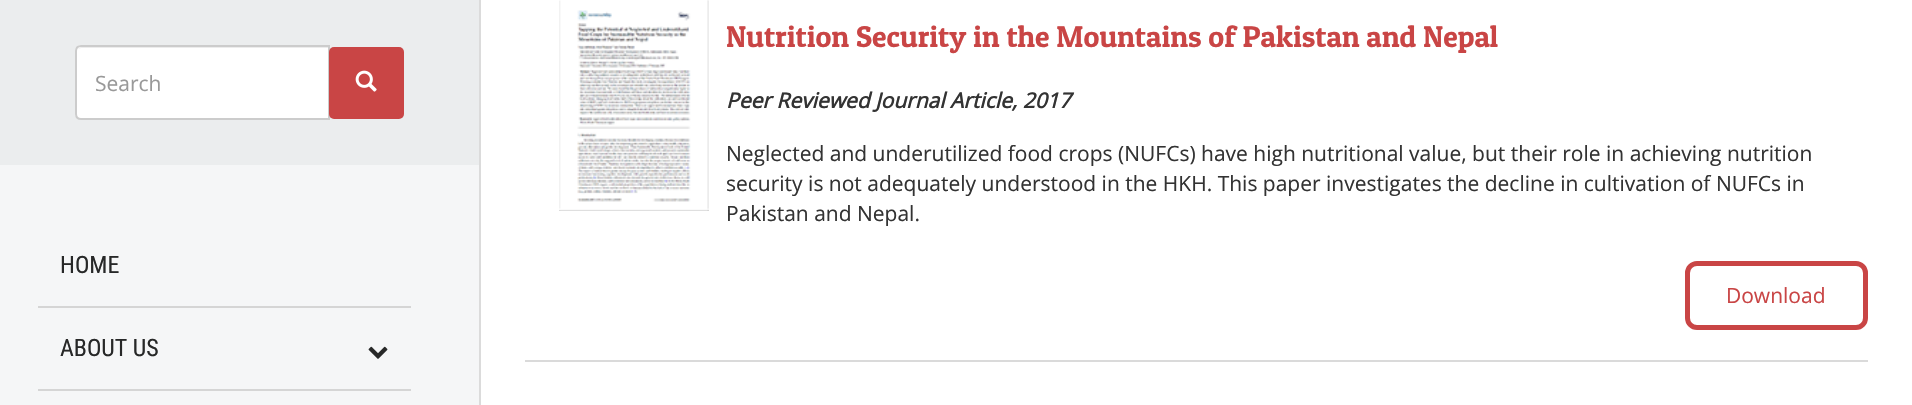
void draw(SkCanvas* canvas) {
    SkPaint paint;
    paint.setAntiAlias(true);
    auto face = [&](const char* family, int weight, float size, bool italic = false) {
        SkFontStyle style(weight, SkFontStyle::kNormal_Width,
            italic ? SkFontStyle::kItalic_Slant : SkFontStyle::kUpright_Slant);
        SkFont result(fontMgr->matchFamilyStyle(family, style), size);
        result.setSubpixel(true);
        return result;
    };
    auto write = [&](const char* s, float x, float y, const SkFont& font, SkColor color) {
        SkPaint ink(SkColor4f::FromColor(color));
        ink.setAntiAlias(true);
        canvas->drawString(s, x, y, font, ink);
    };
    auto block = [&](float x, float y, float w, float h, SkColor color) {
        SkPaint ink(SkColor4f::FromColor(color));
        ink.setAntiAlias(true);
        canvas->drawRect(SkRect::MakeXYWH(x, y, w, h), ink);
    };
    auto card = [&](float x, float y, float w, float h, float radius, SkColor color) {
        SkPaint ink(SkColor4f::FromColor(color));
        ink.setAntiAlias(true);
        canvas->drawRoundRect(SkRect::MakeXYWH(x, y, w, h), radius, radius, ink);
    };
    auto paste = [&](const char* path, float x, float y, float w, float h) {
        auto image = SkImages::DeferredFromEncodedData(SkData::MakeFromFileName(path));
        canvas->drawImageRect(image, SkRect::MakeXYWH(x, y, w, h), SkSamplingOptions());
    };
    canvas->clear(SK_ColorWHITE);
    block(0, 165, 479, 240, SkColorSetRGB(245, 246, 247));
    block(479, 0, 2, 405, SkColorSetRGB(219, 219, 219));
    block(0, 0, 479, 165, SkColorSetRGB(235, 237, 238));
    paint.setColor(SK_ColorWHITE);
    canvas->drawPath(SkPathBuilder().moveTo(81, 45).lineTo(330, 45).lineTo(330, 120).lineTo(81, 120).cubicTo(77.5f, 120, 75, 117.5f, 75, 114).lineTo(75, 51).cubicTo(75, 47.5f, 77.5f, 45, 81, 45).close().detach(), paint);
    paint.setColor(SkColorSetRGB(236, 236, 236));
    canvas->drawPath(SkPathBuilder().moveTo(81, 48).lineTo(328, 48).lineTo(328, 119).lineTo(329, 119).lineTo(329, 47).lineTo(82, 47).cubicTo(80, 47, 79, 48, 78, 49).close().detach(), paint);
    paint.setStyle(SkPaint::kStroke_Style);
    paint.setStrokeWidth(2);
    paint.setColor(SkColorSetRGB(204, 204, 204));
    canvas->drawPath(SkPathBuilder().moveTo(81, 46).lineTo(329, 46).lineTo(329, 119).lineTo(81, 119).cubicTo(78, 119, 76, 117, 76, 114).lineTo(76, 51).cubicTo(76, 48, 78, 46, 81, 46).close().detach(), paint);
    auto kFont1 = face("Open Sans", 400, 21);
    write("Search", 95, 91, kFont1, SkColorSetRGB(153, 153, 153));
    card(329, 47, 75, 72, 5, SkColorSetRGB(201, 69, 69));
    paste("pic1.png", 355, 70, 22, 22);
    block(38, 306, 373, 2, SkColorSetRGB(213, 213, 213));
    auto kFont2 = face("Roboto Condensed", 400, 24);
    write("HOME", 60, 273, kFont2, SkColorSetRGB(39, 40, 40));
    block(38, 389, 373, 2, SkColorSetRGB(213, 213, 213));
    write("ABOUT US", 60, 356, kFont2, SkColorSetRGB(39, 40, 40));
    paste("pic2.png", 368, 346, 20, 13);
    paste("pic3.png", 559, 0, 150, 211);
    auto kFont3 = face("Patua One", 400, 30);
    write("Nutrition Security in the Mountains of Pakistan and Nepal", 726, 47, kFont3, SkColorSetRGB(201, 69, 69));
    auto kFont4 = face("Open Sans", 700, 21, true);
    write("Peer Reviewed Journal Article, 2017", 726, 108, kFont4, SkColorSetRGB(51, 51, 51));
    write("Neglected and underutilized food crops (NUFCs) have high nutritional value, but their role in achieving nutrition", 726, 161, kFont1, SkColorSetRGB(51, 51, 51));
    write("security is not adequately understood in the HKH. This paper investigates the decline in cultivation of NUFCs in", 726, 191, kFont1, SkColorSetRGB(51, 51, 51));
    write("Pakistan and Nepal.", 726, 221, kFont1, SkColorSetRGB(51, 51, 51));
    paint.setStrokeWidth(5);
    paint.setColor(SkColorSetRGB(201, 69, 69));
    canvas->drawRoundRect(SkRect::MakeXYWH(1687.5f, 263.5f, 178, 64), 9.5f, 9.5f, paint);
    write("Download", 1726, 303, kFont1, SkColorSetRGB(201, 69, 69));
    block(525, 360, 1343, 2, SkColorSetRGB(218, 218, 218));
}
